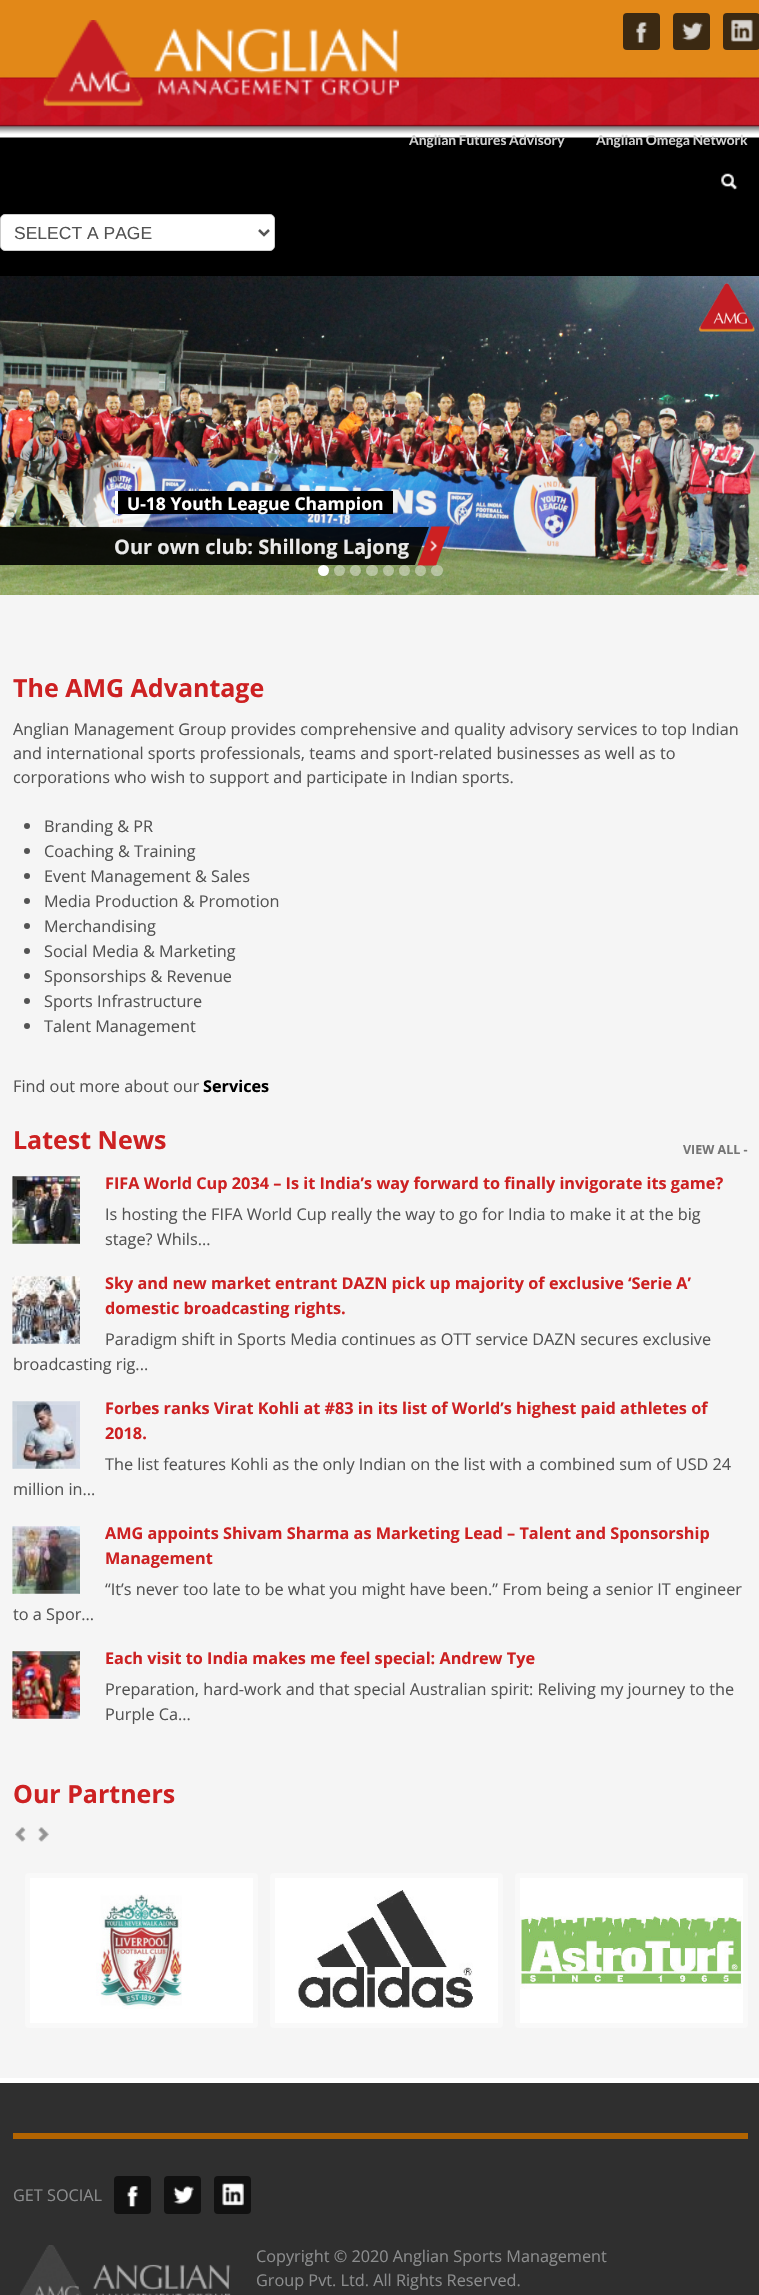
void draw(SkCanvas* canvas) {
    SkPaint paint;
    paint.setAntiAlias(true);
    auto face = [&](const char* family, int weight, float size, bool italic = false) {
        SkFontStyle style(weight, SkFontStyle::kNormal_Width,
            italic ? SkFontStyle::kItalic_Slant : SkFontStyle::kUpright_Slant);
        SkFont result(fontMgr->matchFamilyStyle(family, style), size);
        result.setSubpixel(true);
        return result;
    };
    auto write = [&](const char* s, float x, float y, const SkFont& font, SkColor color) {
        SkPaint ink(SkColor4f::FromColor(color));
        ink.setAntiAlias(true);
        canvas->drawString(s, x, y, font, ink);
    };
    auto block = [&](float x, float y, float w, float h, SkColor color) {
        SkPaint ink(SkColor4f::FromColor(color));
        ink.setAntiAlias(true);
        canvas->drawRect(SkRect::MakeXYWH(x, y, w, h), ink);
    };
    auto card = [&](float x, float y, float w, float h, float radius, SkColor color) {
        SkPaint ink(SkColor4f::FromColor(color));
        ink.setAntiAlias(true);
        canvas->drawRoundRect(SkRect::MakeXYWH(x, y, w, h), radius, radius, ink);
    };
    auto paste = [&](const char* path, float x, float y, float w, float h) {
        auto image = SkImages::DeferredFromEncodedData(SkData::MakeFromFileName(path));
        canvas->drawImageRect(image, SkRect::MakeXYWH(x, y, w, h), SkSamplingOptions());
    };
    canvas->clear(SkColorSetRGB(245, 245, 245));
    block(0, 137, 759, 139, SK_ColorBLACK);
    paste("pic1.png", 0, 0, 759, 138);
    paste("pic2.png", 43, 20, 356, 87);
    card(623, 13, 37, 37, 4, SkColorSetRGB(59, 41, 18));
    paste("pic3.png", 636, 22, 11, 21);
    card(673, 13, 37, 37, 4, SkColorSetRGB(59, 41, 18));
    paste("pic4.png", 682, 22, 21, 19);
    card(723, 13, 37, 37, 4, SkColorSetRGB(59, 41, 18));
    paste("pic5.png", 731, 19, 22, 23);
    auto kFont1 = face("Lato", 700, 13.75f);
    write("Anglian Futures Advisory", 409, 145, kFont1, SkColorSetRGB(210, 210, 210));
    write("Anglian Omega Network", 596, 145, kFont1, SkColorSetRGB(210, 210, 210));
    paste("pic6.png", 721, 173, 17, 17);
    paint.setColor(SK_ColorWHITE);
    canvas->drawRoundRect(SkRect::MakeXYWH(0.5f, 214.5f, 274, 36), 4.5f, 4.5f, paint);
    paint.setStyle(SkPaint::kStroke_Style);
    paint.setStrokeWidth(1);
    paint.setColor(SkColorSetRGB(204, 204, 204));
    canvas->drawRoundRect(SkRect::MakeXYWH(0.5f, 214.5f, 274, 36), 4.5f, 4.5f, paint);
    paint.setStrokeWidth(2.5f);
    paint.setColor(SkColorSetRGB(85, 85, 85));
    canvas->drawPath(SkPathBuilder().moveTo(259, 230).lineTo(264, 235).lineTo(269, 230).detach(), paint);
    auto kFont2 = face("Liberation Sans", 400, 17.5f);
    write("SELECT A PAGE", 14, 239, kFont2, SkColorSetRGB(83, 83, 83));
    paste("pic7.png", 0, 276, 759, 319);
    auto kFont3 = face("Open Sans", 700, 8);
    write("PREV", 52, 439, kFont3, SkColorSetRGB(97, 70, 64));
    write("NEXT", 688, 439, kFont3, SkColorSetRGB(88, 93, 92));
    block(118, 491, 275, 23, SK_ColorBLACK);
    block(115, 491, 3, 23, SK_ColorWHITE);
    auto kFont4 = face("Open Sans", 700, 17.5f);
    write("U-18 Youth League Champion", 127, 510, kFont4, SK_ColorWHITE);
    paint.setStyle(SkPaint::kFill_Style);
    paint.setColor(SkColorSetARGB(230, 0, 0, 0));
    canvas->drawPath(SkPathBuilder().moveTo(-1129, 527).lineTo(429, 527).lineTo(415, 565).lineTo(-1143, 565).close().detach(), paint);
    auto kFont5 = face("Open Sans", 700, 20);
    write("Our own club: Shillong Lajong", 114, 554, kFont5, SkColorSetRGB(233, 233, 233));
    paint.setColor(SkColorSetRGB(205, 33, 34));
    canvas->drawPath(SkPathBuilder().moveTo(431.5f, 526.5f).lineTo(450, 526.5f).lineTo(436, 565.5f).lineTo(417.5f, 565.5f).close().detach(), paint);
    paste("pic8.png", 430, 540, 8, 12);
    paint.setColor(SK_ColorWHITE);
    canvas->drawCircle(323.5f, 570.5f, 5.5f, paint);
    paint.setColor(SkColorSetARGB(102, 255, 255, 255));
    canvas->drawCircle(339.5f, 570.5f, 5.5f, paint);
    canvas->drawCircle(355.5f, 570.5f, 5.5f, paint);
    card(366, 565, 12, 11, 5.5f, SkColorSetARGB(102, 255, 255, 255));
    canvas->drawCircle(388.5f, 570.5f, 5.5f, paint);
    canvas->drawCircle(404.5f, 570.5f, 5.5f, paint);
    canvas->drawCircle(420.5f, 570.5f, 5.5f, paint);
    card(431, 565, 12, 11, 5.5f, SkColorSetARGB(102, 255, 255, 255));
    auto kFont6 = face("Open Sans", 700, 25);
    write("The AMG Advantage", 13, 697, kFont6, SkColorSetRGB(205, 33, 34));
    auto kFont7 = face("Open Sans", 400, 16.25f);
    write("Anglian Management Group provides comprehensive and quality advisory services to top Indian", 13, 735, kFont7, SkColorSetRGB(83, 83, 83));
    write("and international sports professionals, teams and sport-related businesses as well as to", 13, 759, kFont7, SkColorSetRGB(83, 83, 83));
    write("corporations who wish to support and participate in Indian sports.", 13, 783, kFont7, SkColorSetRGB(83, 83, 83));
    paint.setColor(SkColorSetRGB(83, 83, 83));
    canvas->drawCircle(27, 826, 3, paint);
    write("Branding & PR", 44, 832, kFont7, SkColorSetRGB(83, 83, 83));
    canvas->drawCircle(27, 851, 3, paint);
    write("Coaching & Training", 44, 857, kFont7, SkColorSetRGB(83, 83, 83));
    canvas->drawCircle(27, 876, 3, paint);
    write("Event Management & Sales", 44, 882, kFont7, SkColorSetRGB(83, 83, 83));
    canvas->drawCircle(27, 901, 3, paint);
    write("Media Production & Promotion", 44, 907, kFont7, SkColorSetRGB(83, 83, 83));
    canvas->drawCircle(27, 926, 3, paint);
    write("Merchandising", 44, 932, kFont7, SkColorSetRGB(83, 83, 83));
    canvas->drawCircle(27, 951, 3, paint);
    write("Social Media & Marketing", 44, 957, kFont7, SkColorSetRGB(83, 83, 83));
    canvas->drawCircle(27, 976, 3, paint);
    write("Sponsorships & Revenue", 44, 982, kFont7, SkColorSetRGB(83, 83, 83));
    canvas->drawCircle(27, 1001, 3, paint);
    write("Sports Infrastructure", 44, 1007, kFont7, SkColorSetRGB(83, 83, 83));
    canvas->drawCircle(27, 1026, 3, paint);
    write("Talent Management", 44, 1032, kFont7, SkColorSetRGB(83, 83, 83));
    write("Find out more about our", 13, 1092, kFont7, SkColorSetRGB(83, 83, 83));
    auto kFont8 = face("Open Sans", 700, 16.25f);
    write("Services", 203, 1092, kFont8, SK_ColorBLACK);
    write("Latest News", 13, 1149, kFont6, SkColorSetRGB(205, 33, 34));
    auto kFont9 = face("Open Sans", 700, 12.5f);
    write("VIEW ALL -", 683, 1154, kFont9, SkColorSetRGB(117, 117, 117));
    paste("pic9.png", 12, 1176, 68, 68);
    paint.setStyle(SkPaint::kStroke_Style);
    paint.setStrokeWidth(4);
    paint.setColor(SkColorSetARGB(38, 255, 255, 255));
    canvas->drawRoundRect(SkRect::MakeXYWH(15, 1178, 63, 64), 0.5f, 0.5f, paint);
    write("FIFA World Cup 2034 – Is it India’s way forward to finally invigorate its game?", 105, 1189, kFont8, SkColorSetRGB(205, 33, 34));
    write("Is hosting the FIFA World Cup really the way to go for India to make it at the big", 105, 1220, kFont7, SkColorSetRGB(83, 83, 83));
    write("stage? Whils...", 105, 1245, kFont7, SkColorSetRGB(83, 83, 83));
    paste("pic10.png", 12, 1276, 68, 68);
    canvas->drawRoundRect(SkRect::MakeXYWH(15, 1278, 63, 64), 0.5f, 0.5f, paint);
    write("Sky and new market entrant DAZN pick up majority of exclusive ‘Serie A’", 105, 1289, kFont8, SkColorSetRGB(205, 33, 34));
    write("domestic broadcasting rights.", 105, 1314, kFont8, SkColorSetRGB(205, 33, 34));
    write("Paradigm shift in Sports Media continues as OTT service DAZN secures exclusive", 105, 1345, kFont7, SkColorSetRGB(83, 83, 83));
    write("broadcasting rig...", 13, 1370, kFont7, SkColorSetRGB(83, 83, 83));
    paste("pic11.png", 12, 1401, 68, 68);
    canvas->drawRoundRect(SkRect::MakeXYWH(15, 1403, 63, 64), 0.5f, 0.5f, paint);
    write("Forbes ranks Virat Kohli at #83 in its list of World’s highest paid athletes of", 105, 1414, kFont8, SkColorSetRGB(205, 33, 34));
    write("2018.", 105, 1439, kFont8, SkColorSetRGB(205, 33, 34));
    write("The list features Kohli as the only Indian on the list with a combined sum of USD 24", 105, 1470, kFont7, SkColorSetRGB(83, 83, 83));
    write("million in...", 13, 1495, kFont7, SkColorSetRGB(83, 83, 83));
    paste("pic12.png", 12, 1526, 68, 68);
    canvas->drawRoundRect(SkRect::MakeXYWH(15, 1528, 63, 64), 0.5f, 0.5f, paint);
    write("AMG appoints Shivam Sharma as Marketing Lead – Talent and Sponsorship", 105, 1539, kFont8, SkColorSetRGB(205, 33, 34));
    write("Management", 105, 1564, kFont8, SkColorSetRGB(205, 33, 34));
    write("“It’s never too late to be what you might have been.” From being a senior IT engineer", 105, 1595, kFont7, SkColorSetRGB(83, 83, 83));
    write("to a Spor...", 13, 1620, kFont7, SkColorSetRGB(83, 83, 83));
    paste("pic13.png", 12, 1651, 68, 68);
    canvas->drawRoundRect(SkRect::MakeXYWH(15, 1653, 63, 64), 0.5f, 0.5f, paint);
    write("Each visit to India makes me feel special: Andrew Tye", 105, 1664, kFont8, SkColorSetRGB(205, 33, 34));
    write("Preparation, hard-work and that special Australian spirit: Reliving my journey to the", 105, 1695, kFont7, SkColorSetRGB(83, 83, 83));
    write("Purple Ca...", 105, 1720, kFont7, SkColorSetRGB(83, 83, 83));
    write("Our Partners", 13, 1803, kFont6, SkColorSetRGB(205, 33, 34));
    paste("pic14.png", 15, 1827, 11, 15);
    paste("pic15.png", 38, 1827, 11, 15);
    paint.setStyle(SkPaint::kFill_Style);
    paint.setColor(SK_ColorWHITE);
    canvas->drawRoundRect(SkRect::MakeXYWH(27.5f, 1875.5f, 228, 150), 1.5f, 1.5f, paint);
    paint.setStyle(SkPaint::kStroke_Style);
    paint.setStrokeWidth(5);
    paint.setColor(SkColorSetRGB(249, 249, 249));
    canvas->drawRoundRect(SkRect::MakeXYWH(27.5f, 1875.5f, 228, 150), 1.5f, 1.5f, paint);
    paste("pic16.png", 96, 1894, 86, 115);
    paint.setStyle(SkPaint::kFill_Style);
    paint.setColor(SK_ColorWHITE);
    canvas->drawRoundRect(SkRect::MakeXYWH(272.5f, 1875.5f, 228, 150), 1.5f, 1.5f, paint);
    paint.setStyle(SkPaint::kStroke_Style);
    paint.setColor(SkColorSetRGB(249, 249, 249));
    canvas->drawRoundRect(SkRect::MakeXYWH(272.5f, 1875.5f, 228, 150), 1.5f, 1.5f, paint);
    paste("pic17.png", 298, 1890, 175, 119);
    paint.setStyle(SkPaint::kFill_Style);
    paint.setColor(SK_ColorWHITE);
    canvas->drawRoundRect(SkRect::MakeXYWH(517.5f, 1875.5f, 228, 150), 1.5f, 1.5f, paint);
    paint.setStyle(SkPaint::kStroke_Style);
    paint.setColor(SkColorSetRGB(249, 249, 249));
    canvas->drawRoundRect(SkRect::MakeXYWH(517.5f, 1875.5f, 228, 150), 1.5f, 1.5f, paint);
    paste("pic18.png", 520, 1916, 222, 73);
    block(0, 2083, 759, 212, SkColorSetRGB(47, 47, 47));
    block(0, 2078, 759, 5, SK_ColorWHITE);
    block(13, 2133, 735, 6, SkColorSetRGB(178, 100, 1));
    write("GET SOCIAL", 13, 2201, kFont7, SkColorSetRGB(139, 140, 141));
    card(114, 2176, 37, 38, 4, SkColorSetRGB(17, 17, 17));
    paste("pic19.png", 127, 2186, 11, 21);
    card(164, 2176, 37, 38, 4, SkColorSetRGB(17, 17, 17));
    paste("pic20.png", 173, 2186, 21, 18);
    card(214, 2176, 37, 38, 4, SkColorSetRGB(17, 17, 17));
    paste("pic21.png", 222, 2183, 22, 23);
    paste("pic22.png", 20, 2245, 211, 50);
    write("Copyright © 2020 Anglian Sports Management", 256, 2262, kFont7, SkColorSetRGB(139, 140, 141));
    write("Group Pvt. Ltd. All Rights Reserved.", 256, 2286, kFont7, SkColorSetRGB(139, 140, 141));
}
